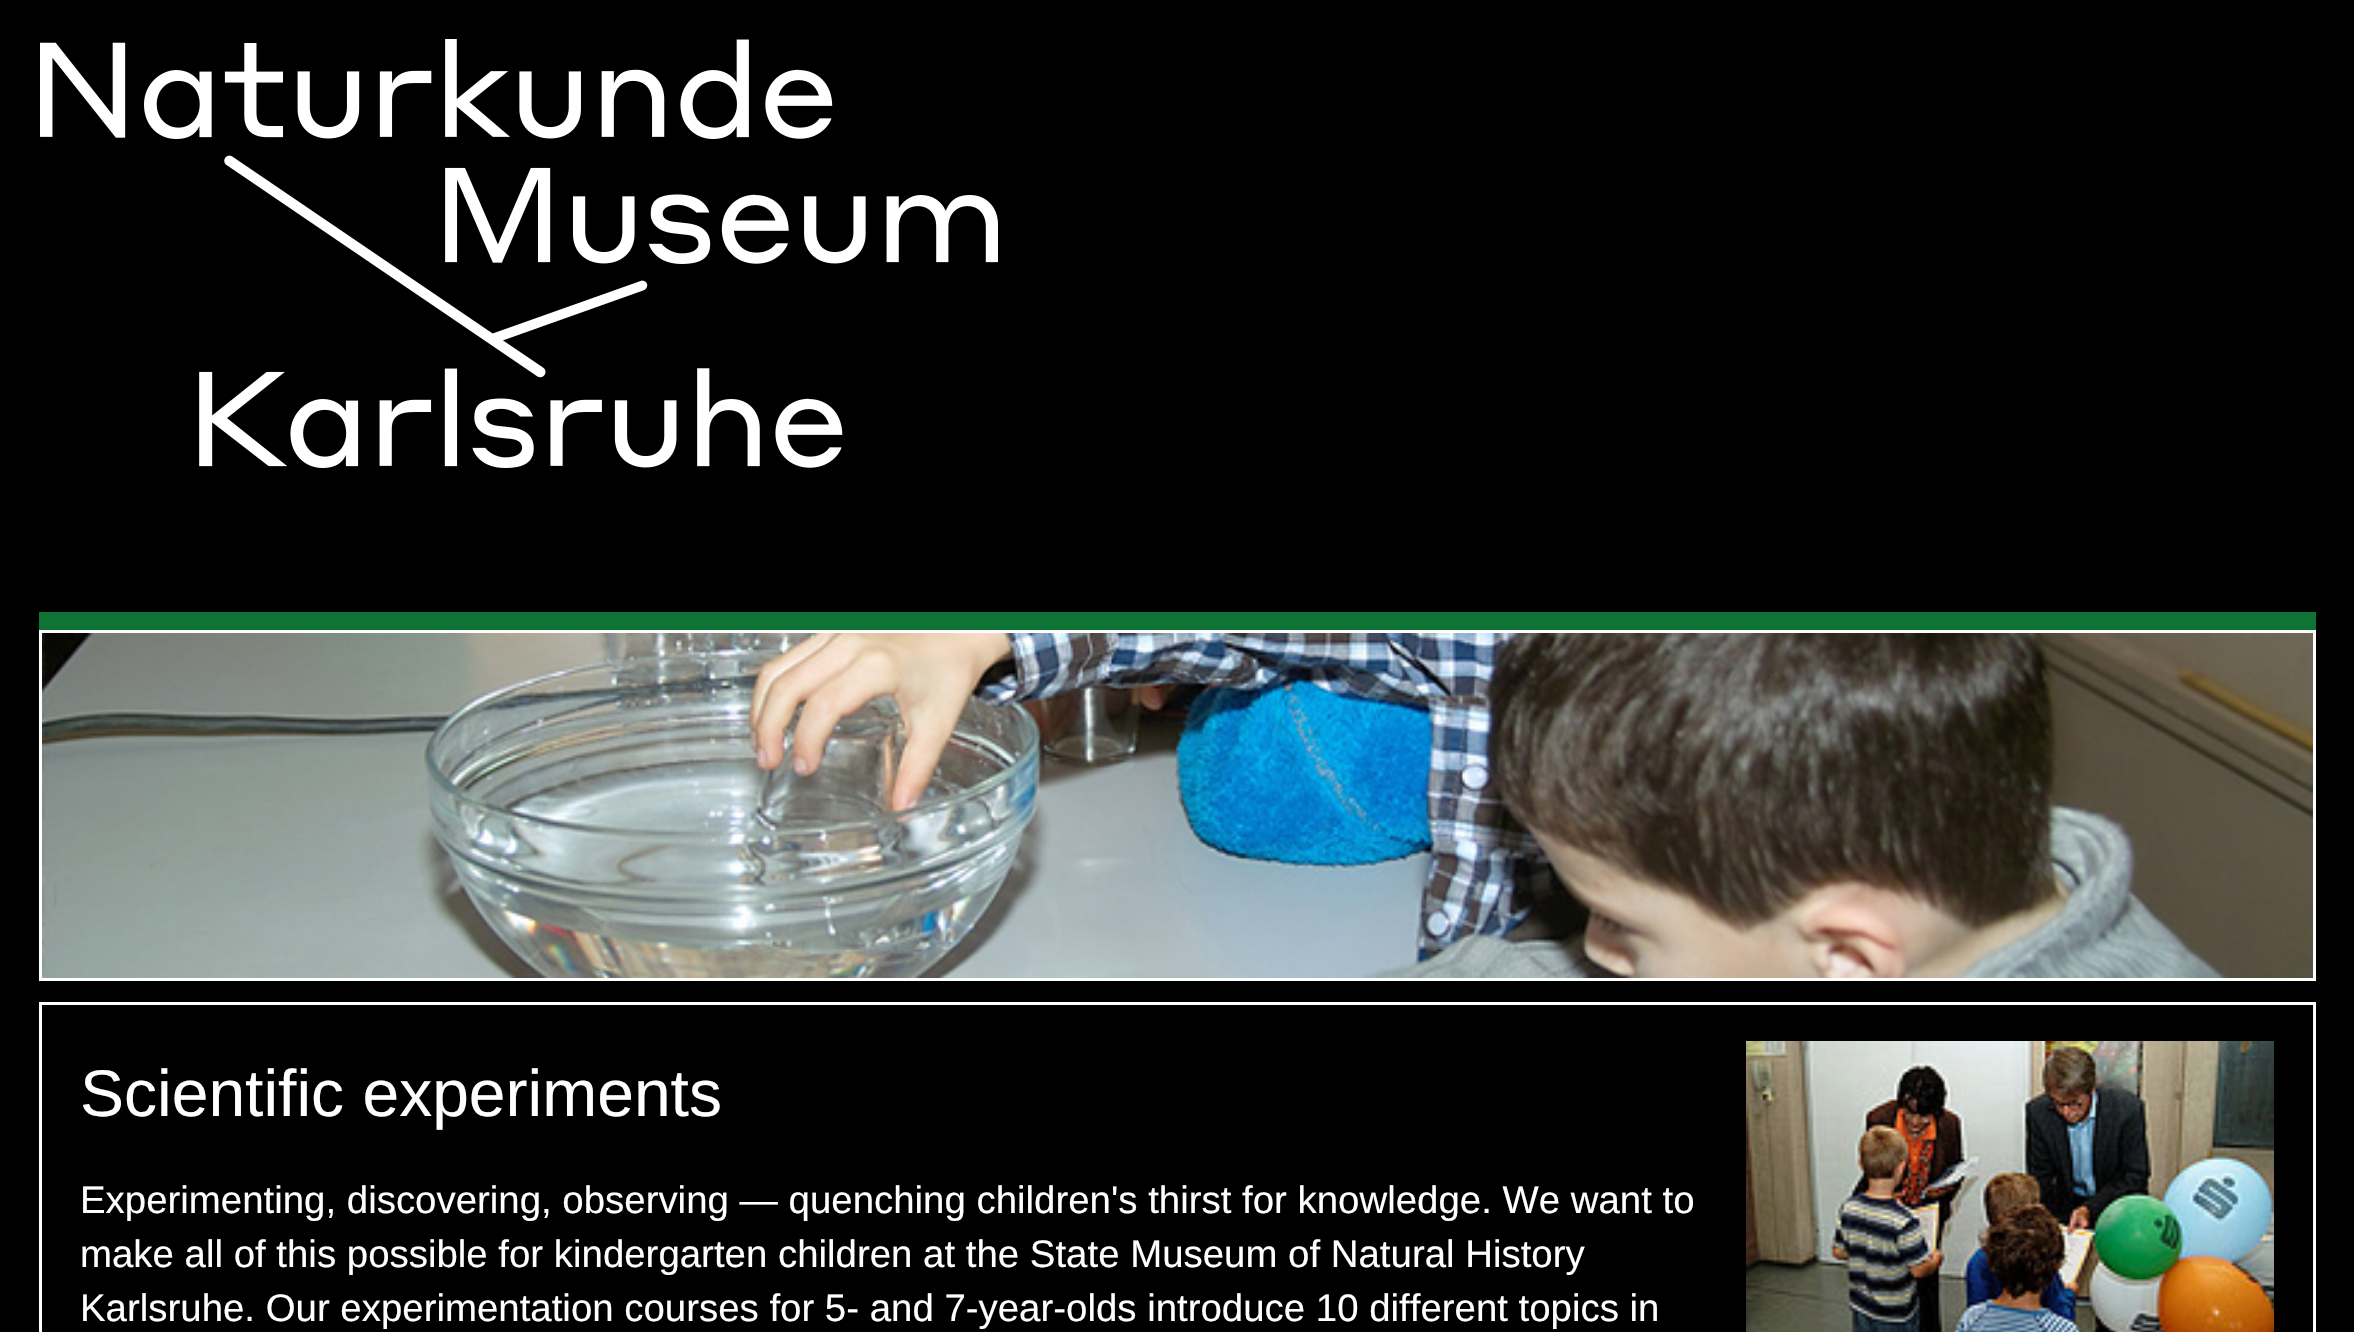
void draw(SkCanvas* canvas) {
    SkPaint paint;
    paint.setAntiAlias(true);
    auto face = [&](const char* family, int weight, float size, bool italic = false) {
        SkFontStyle style(weight, SkFontStyle::kNormal_Width,
            italic ? SkFontStyle::kItalic_Slant : SkFontStyle::kUpright_Slant);
        SkFont result(fontMgr->matchFamilyStyle(family, style), size);
        result.setSubpixel(true);
        return result;
    };
    auto write = [&](const char* s, float x, float y, const SkFont& font, SkColor color) {
        SkPaint ink(SkColor4f::FromColor(color));
        ink.setAntiAlias(true);
        canvas->drawString(s, x, y, font, ink);
    };
    auto block = [&](float x, float y, float w, float h, SkColor color) {
        SkPaint ink(SkColor4f::FromColor(color));
        ink.setAntiAlias(true);
        canvas->drawRect(SkRect::MakeXYWH(x, y, w, h), ink);
    };
    auto paste = [&](const char* path, float x, float y, float w, float h) {
        auto image = SkImages::DeferredFromEncodedData(SkData::MakeFromFileName(path));
        canvas->drawImageRect(image, SkRect::MakeXYWH(x, y, w, h), SkSamplingOptions());
    };
    canvas->clear(SK_ColorBLACK);
    block(39, 612, 2277, 18, SkColorSetRGB(15, 115, 54));
    paste("pic1.png", 40, 39, 958, 429);
    paint.setStyle(SkPaint::kStroke_Style);
    paint.setStrokeWidth(3);
    paint.setColor(SK_ColorWHITE);
    canvas->drawRect(SkRect::MakeXYWH(40.5f, 631.5f, 2274, 348), paint);
    paste("pic2.png", 42, 633, 2271, 345);
    canvas->drawRect(SkRect::MakeXYWH(40.5f, 1003.5f, 2274, 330), paint);
    auto kFont1 = face("Liberation Sans", 400, 66);
    write("Scientific experiments", 80, 1116, kFont1, SK_ColorWHITE);
    auto kFont2 = face("Liberation Sans", 400, 38.4f);
    write("Experimenting, discovering, observing — quenching children's thirst for knowledge. We want to", 80, 1213, kFont2, SK_ColorWHITE);
    write("make all of this possible for kindergarten children at the State Museum of Natural History", 80, 1267, kFont2, SK_ColorWHITE);
    write("Karlsruhe. Our experimentation courses for 5- and 7-year-olds introduce 10 different topics in", 80, 1321, kFont2, SK_ColorWHITE);
    paste("pic3.png", 1746, 1041, 528, 291);
}
